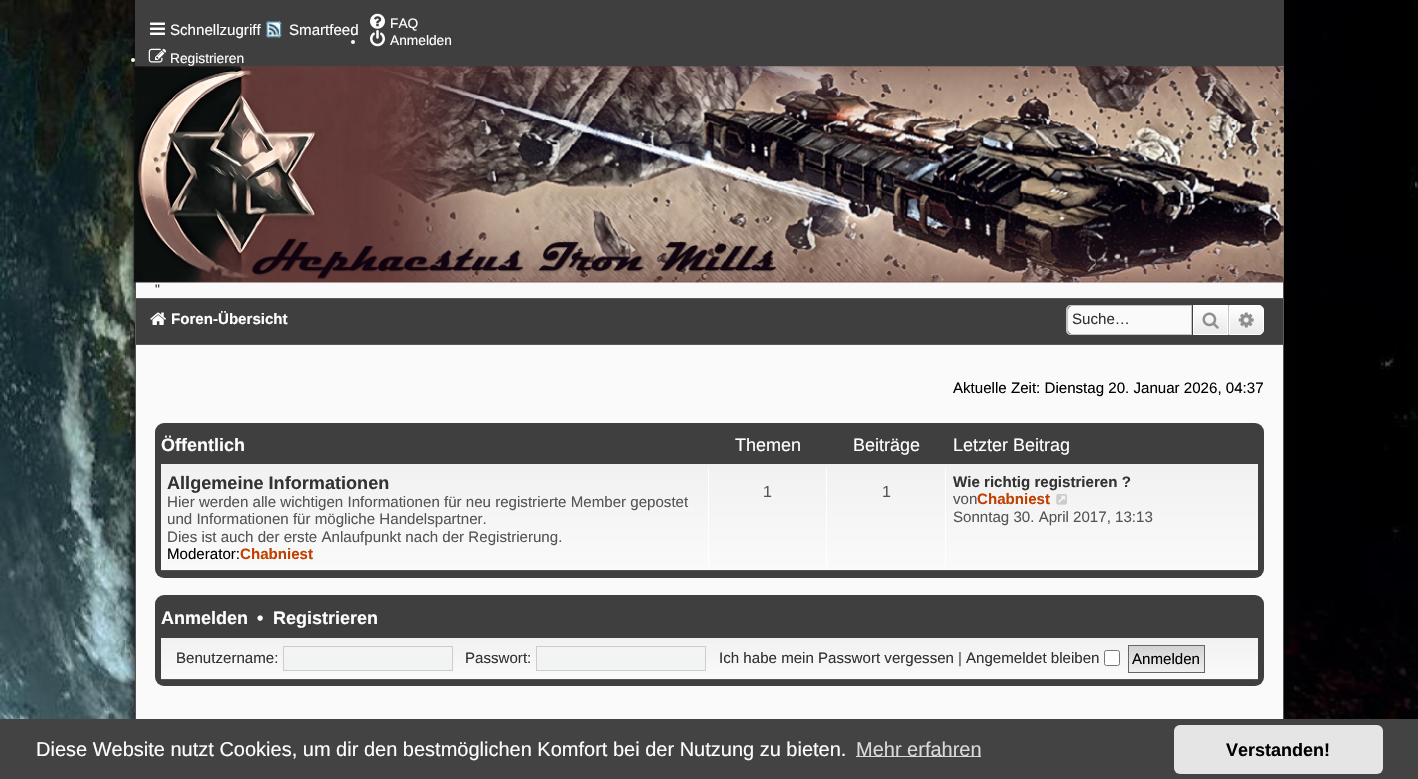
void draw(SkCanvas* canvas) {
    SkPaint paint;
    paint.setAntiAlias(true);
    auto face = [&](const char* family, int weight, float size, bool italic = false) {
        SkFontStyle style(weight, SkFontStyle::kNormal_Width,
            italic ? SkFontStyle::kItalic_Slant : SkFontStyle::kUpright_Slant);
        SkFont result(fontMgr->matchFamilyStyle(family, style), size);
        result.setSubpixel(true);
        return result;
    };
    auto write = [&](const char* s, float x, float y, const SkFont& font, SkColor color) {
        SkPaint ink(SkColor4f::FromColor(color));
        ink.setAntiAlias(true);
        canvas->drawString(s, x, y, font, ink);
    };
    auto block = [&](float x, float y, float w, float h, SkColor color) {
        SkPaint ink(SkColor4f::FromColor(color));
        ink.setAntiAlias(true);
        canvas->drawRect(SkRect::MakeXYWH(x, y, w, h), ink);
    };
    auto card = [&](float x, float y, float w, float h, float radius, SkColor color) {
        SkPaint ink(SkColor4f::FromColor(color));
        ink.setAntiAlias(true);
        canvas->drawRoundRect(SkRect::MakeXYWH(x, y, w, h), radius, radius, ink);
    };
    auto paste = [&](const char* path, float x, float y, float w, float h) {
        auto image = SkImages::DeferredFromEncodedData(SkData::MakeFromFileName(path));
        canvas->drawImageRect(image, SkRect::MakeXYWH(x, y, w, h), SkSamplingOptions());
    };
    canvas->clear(SK_ColorWHITE);
    paste("pic1.png", 0, 0, 1418, 719);
    paint.setColor(SkColorSetARGB(179, 2, 2, 2));
    paint.setMaskFilter(SkMaskFilter::MakeBlur(kNormal_SkBlurStyle, 4));
    canvas->drawRoundRect(SkRect::MakeXYWH(133, -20, 1153, 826), 15, 15, paint);
    paint.setMaskFilter(nullptr);
    block(136, 282, 1147, 437, SkColorSetRGB(250, 250, 250));
    paint.setStyle(SkPaint::kStroke_Style);
    paint.setStrokeWidth(1);
    paint.setColor(SkColorSetRGB(83, 84, 83));
    canvas->drawRect(SkRect::MakeXYWH(135.5f, -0.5f, 1148, 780), paint);
    block(135, 0, 1149, 73, SkColorSetRGB(63, 63, 63));
    paste("pic2.png", 370, 13, 15, 16);
    auto kFont1 = face("Liberation Sans", 400, 13.75f);
    write("FAQ", 390, 28, kFont1, SK_ColorWHITE);
    paint.setStyle(SkPaint::kFill_Style);
    paint.setColor(SkColorSetRGB(250, 250, 250));
    canvas->drawCircle(353, 42, 2, paint);
    paste("pic3.png", 370, 30, 15, 17);
    write("Anmelden", 390, 45, kFont1, SK_ColorWHITE);
    canvas->drawCircle(133, 60, 2, paint);
    paste("pic4.png", 148, 48, 19, 15);
    write("Registrieren", 170, 63, kFont1, SK_ColorWHITE);
    paste("pic5.png", 150, 22, 15, 13);
    auto kFont2 = face("Liberation Sans", 400, 15.1f);
    write("Schnellzugriff", 170, 35, kFont2, SK_ColorWHITE);
    paste("pic6.png", 266, 21, 16, 17);
    write("Smartfeed", 289, 35, kFont2, SK_ColorWHITE);
    paste("pic7.png", 133, 66, 1151, 217);
    write("\"", 155, 294, kFont1, SkColorSetRGB(51, 51, 51));
    paint.setColor(SkColorSetRGB(63, 63, 63));
    canvas->drawRect(SkRect::MakeXYWH(135.5f, 298.5f, 1148, 46), paint);
    paint.setStyle(SkPaint::kStroke_Style);
    paint.setColor(SkColorSetRGB(91, 91, 91));
    canvas->drawRect(SkRect::MakeXYWH(135.5f, 298.5f, 1148, 46), paint);
    paste("pic8.png", 150, 312, 16, 13);
    auto kFont3 = face("Liberation Sans", 700, 15.1f);
    write("Foren-Übersicht", 171, 324, kFont3, SK_ColorWHITE);
    paint.setStyle(SkPaint::kFill_Style);
    paint.setColor(SkColorSetRGB(250, 250, 250));
    canvas->drawPath(SkPathBuilder().moveTo(1072, 306).lineTo(1191, 306).lineTo(1191, 334).lineTo(1072, 334).cubicTo(1070, 334, 1068, 332, 1068, 330).lineTo(1068, 310).cubicTo(1068, 308, 1070, 306, 1072, 306).close().detach(), paint);
    paint.setColor(SkColorSetRGB(199, 195, 191));
    canvas->drawPath(SkPathBuilder(SkPathFillType::kEvenOdd).moveTo(1071, 305).lineTo(1191, 305).lineTo(1191, 335).lineTo(1071, 335).cubicTo(1068, 335, 1066, 333, 1066, 330).lineTo(1066, 310).cubicTo(1066, 307, 1068, 305, 1071, 305).close().moveTo(1071, 306).lineTo(1191, 306).lineTo(1191, 334).lineTo(1071, 334).cubicTo(1069, 334, 1068, 332, 1068, 330).lineTo(1068, 310).cubicTo(1068, 308, 1069, 306, 1071, 306).close().detach(), paint);
    write("Suche…", 1072, 324, kFont2, SkColorSetRGB(51, 51, 51));
    {
        const SkColor colors[] = {SK_ColorWHITE, SkColorSetRGB(233, 233, 233)};
        const float stops[] = {0, 1};
        const SkPoint ends[] = {{1210, 305}, {1210, 335}};
        paint.setShader(SkGradientShader::MakeLinear(ends, colors, stops, 2, SkTileMode::kClamp));
        paint.setAlpha(255);
    }
    canvas->drawRect(SkRect::MakeXYWH(1194, 306, 33, 28), paint);
    paint.setStyle(SkPaint::kStroke_Style);
    paint.setShader(nullptr);
    paint.setColor(SK_ColorWHITE);
    canvas->drawRect(SkRect::MakeXYWH(1193.5f, 305.5f, 34, 29), paint);
    block(1228, 305, 1, 30, SkColorSetRGB(199, 195, 191));
    block(1191, 305, 1, 30, SkColorSetRGB(199, 195, 191));
    paste("pic9.png", 1202, 312, 17, 17);
    paint.setStyle(SkPaint::kFill_Style);
    {
        const SkColor colors[] = {SK_ColorWHITE, SkColorSetRGB(233, 233, 233)};
        const float stops[] = {0, 1};
        const SkPoint ends[] = {{1246, 305}, {1246, 335}};
        paint.setShader(SkGradientShader::MakeLinear(ends, colors, stops, 2, SkTileMode::kClamp));
        paint.setAlpha(255);
    }
    canvas->drawPath(SkPathBuilder().moveTo(1229.5f, 305.5f).lineTo(1259, 305.5f).cubicTo(1261.5f, 305.5f, 1263.5f, 307.5f, 1263.5f, 310).lineTo(1263.5f, 330).cubicTo(1263.5f, 332.5f, 1261.5f, 334.5f, 1259, 334.5f).lineTo(1229.5f, 334.5f).close().detach(), paint);
    paint.setStyle(SkPaint::kStroke_Style);
    paint.setShader(nullptr);
    paint.setColor(SK_ColorWHITE);
    canvas->drawPath(SkPathBuilder().moveTo(1229.5f, 305.5f).lineTo(1259, 305.5f).cubicTo(1261.5f, 305.5f, 1263.5f, 307.5f, 1263.5f, 310).lineTo(1263.5f, 330).cubicTo(1263.5f, 332.5f, 1261.5f, 334.5f, 1259, 334.5f).lineTo(1229.5f, 334.5f).close().detach(), paint);
    paste("pic10.png", 1238, 312, 16, 16);
    write("Aktuelle Zeit: Dienstag 20. Januar 2026, 04:37", 953, 393, kFont2, SK_ColorBLACK);
    card(155, 423, 1109, 155, 9, SkColorSetRGB(63, 63, 63));
    auto kFont4 = face("Liberation Sans", 700, 18);
    write("Öffentlich", 161, 451, kFont4, SK_ColorWHITE);
    auto kFont5 = face("Liberation Sans", 400, 18);
    write("Themen", 735, 451, kFont5, SK_ColorWHITE);
    write("Beiträge", 853, 451, kFont5, SK_ColorWHITE);
    write("Letzter Beitrag", 953, 451, kFont5, SK_ColorWHITE);
    paint.setStyle(SkPaint::kFill_Style);
    {
        const SkColor colors[] = {SkColorSetRGB(241, 241, 241), SkColorSetRGB(250, 250, 250)};
        const float stops[] = {0, 1};
        const SkPoint ends[] = {{709, 464}, {709, 571}};
        paint.setShader(SkGradientShader::MakeLinear(ends, colors, stops, 2, SkTileMode::kClamp));
        paint.setAlpha(255);
    }
    canvas->drawRect(SkRect::MakeXYWH(161, 464, 1097, 106), paint);
    block(161, 570, 1097, 1, SkColorSetRGB(85, 85, 85));
    auto kFont6 = face("Liberation Sans", 700, 18.1f);
    write("Allgemeine Informationen", 167, 489, kFont6, SkColorSetRGB(51, 51, 51));
    write("Hier werden alle wichtigen Informationen für neu registrierte Member gepostet", 167, 507, kFont2, SkColorSetRGB(85, 85, 85));
    write("und Informationen für mögliche Handelspartner.", 167, 524, kFont2, SkColorSetRGB(85, 85, 85));
    write("Dies ist auch der erste Anlaufpunkt nach der Registrierung.", 167, 542, kFont2, SkColorSetRGB(85, 85, 85));
    write("Moderator:", 167, 559, kFont2, SK_ColorBLACK);
    write("Chabniest", 240, 559, kFont3, SkColorSetRGB(191, 64, 0));
    block(708, 468, 1, 100, SK_ColorWHITE);
    auto kFont7 = face("Liberation Sans", 400, 16);
    write("1", 763, 497, kFont7, SkColorSetRGB(85, 85, 85));
    block(826, 468, 1, 100, SK_ColorWHITE);
    write("1", 882, 497, kFont7, SkColorSetRGB(85, 85, 85));
    block(945, 468, 1, 100, SK_ColorWHITE);
    write("Wie richtig registrieren ?", 953, 487, kFont3, SkColorSetRGB(51, 51, 51));
    write("von", 953, 504, kFont2, SkColorSetRGB(85, 85, 85));
    write("Chabniest", 977, 504, kFont3, SkColorSetRGB(191, 64, 0));
    paste("pic11.png", 1056, 494, 11, 11);
    write("Sonntag 30. April 2017, 13:13", 953, 522, kFont2, SkColorSetRGB(85, 85, 85));
    card(155, 595, 1109, 91, 9, SkColorSetRGB(63, 63, 63));
    write("Anmelden", 161, 624, kFont4, SK_ColorWHITE);
    write("•", 257, 624, kFont4, SK_ColorWHITE);
    write("Registrieren", 273, 624, kFont4, SK_ColorWHITE);
    {
        const SkColor colors[] = {SkColorSetRGB(241, 241, 241), SkColorSetRGB(250, 250, 250)};
        const float stops[] = {0, 1};
        const SkPoint ends[] = {{709, 637}, {709, 680}};
        paint.setShader(SkGradientShader::MakeLinear(ends, colors, stops, 2, SkTileMode::kClamp));
        paint.setAlpha(255);
    }
    canvas->drawRect(SkRect::MakeXYWH(161, 638, 1097, 41), paint);
    block(161, 679, 1097, 1, SkColorSetRGB(85, 85, 85));
    write("Benutzername:", 176, 663, kFont2, SkColorSetRGB(51, 51, 51));
    block(284, 654, 168, 16, SkColorSetRGB(242, 243, 243));
    paint.setStyle(SkPaint::kStroke_Style);
    paint.setShader(nullptr);
    paint.setColor(SkColorSetRGB(204, 204, 204));
    canvas->drawRect(SkRect::MakeXYWH(283.5f, 646.5f, 169, 24), paint);
    write("Passwort:", 465, 663, kFont2, SkColorSetRGB(51, 51, 51));
    block(537, 654, 168, 16, SkColorSetRGB(242, 243, 243));
    canvas->drawRect(SkRect::MakeXYWH(536.5f, 646.5f, 169, 24), paint);
    write("Ich habe mein Passwort vergessen", 719, 663, kFont2, SkColorSetRGB(51, 51, 51));
    write("|", 958, 663, kFont2, SkColorSetRGB(85, 85, 85));
    write("Angemeldet bleiben", 966, 663, kFont2, SkColorSetRGB(51, 51, 51));
    paint.setStyle(SkPaint::kFill_Style);
    paint.setColor(SK_ColorWHITE);
    canvas->drawRoundRect(SkRect::MakeXYWH(1104.5f, 650.5f, 15, 15), 2, 2, paint);
    paint.setStyle(SkPaint::kStroke_Style);
    paint.setColor(SkColorSetRGB(118, 118, 118));
    canvas->drawRoundRect(SkRect::MakeXYWH(1104.5f, 650.5f, 15, 15), 2, 2, paint);
    block(1129, 671, 75, 1, SkColorSetRGB(239, 239, 239));
    paint.setStyle(SkPaint::kFill_Style);
    {
        const SkColor colors[] = {SkColorSetRGB(210, 210, 210), SkColorSetRGB(239, 239, 239)};
        const float stops[] = {0, 1};
        const SkPoint ends[] = {{1166, 646}, {1166, 671}};
        paint.setShader(SkGradientShader::MakeLinear(ends, colors, stops, 2, SkTileMode::kClamp));
        paint.setAlpha(255);
    }
    canvas->drawRect(SkRect::MakeXYWH(1129, 646, 75, 25), paint);
    paint.setStyle(SkPaint::kStroke_Style);
    paint.setShader(nullptr);
    paint.setColor(SkColorSetRGB(102, 102, 102));
    canvas->drawRect(SkRect::MakeXYWH(1128.5f, 645.5f, 76, 27), paint);
    write("Anmelden", 1132, 664, kFont2, SK_ColorBLACK);
    block(0, 719, 1418, 60, SkColorSetRGB(67, 67, 67));
    auto kFont8 = face("Liberation Sans", 400, 20);
    write("Diese Website nutzt Cookies, um dir den bestmöglichen Komfort bei der Nutzung zu bieten.", 36, 756, kFont8, SK_ColorWHITE);
    block(856, 756, 125, 1, SkColorSetRGB(217, 217, 217));
    write("Mehr erfahren", 856, 756, kFont8, SkColorSetRGB(217, 217, 217));
    card(1174, 725, 209, 49, 6, SkColorSetRGB(229, 229, 229));
    write("Verstanden!", 1226, 756, kFont4, SK_ColorBLACK);
}
